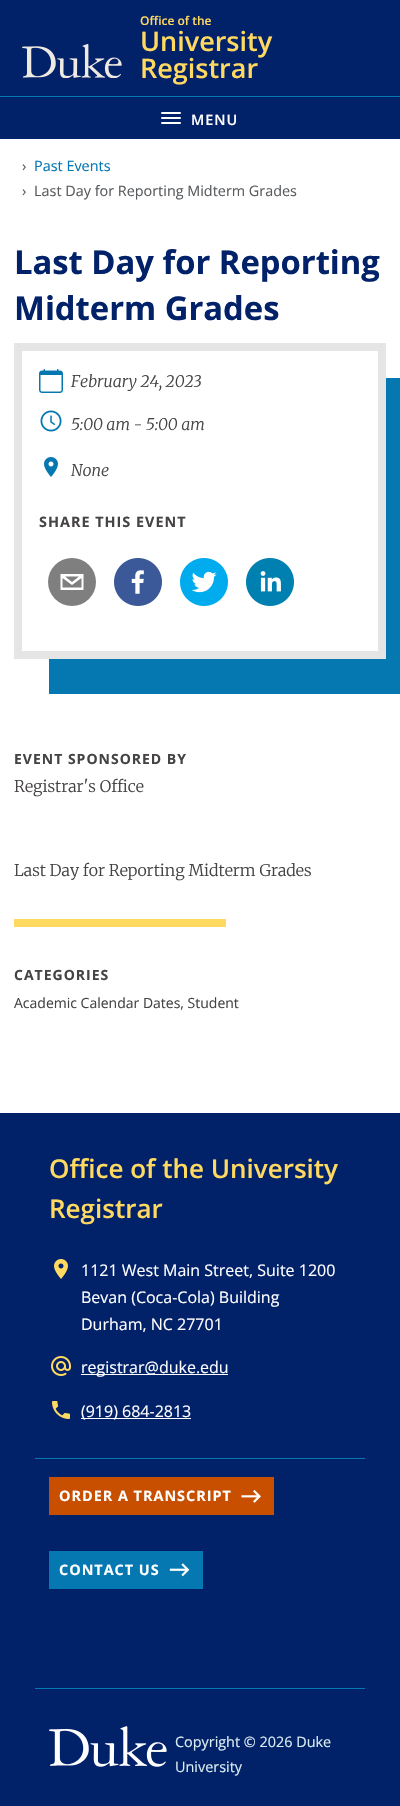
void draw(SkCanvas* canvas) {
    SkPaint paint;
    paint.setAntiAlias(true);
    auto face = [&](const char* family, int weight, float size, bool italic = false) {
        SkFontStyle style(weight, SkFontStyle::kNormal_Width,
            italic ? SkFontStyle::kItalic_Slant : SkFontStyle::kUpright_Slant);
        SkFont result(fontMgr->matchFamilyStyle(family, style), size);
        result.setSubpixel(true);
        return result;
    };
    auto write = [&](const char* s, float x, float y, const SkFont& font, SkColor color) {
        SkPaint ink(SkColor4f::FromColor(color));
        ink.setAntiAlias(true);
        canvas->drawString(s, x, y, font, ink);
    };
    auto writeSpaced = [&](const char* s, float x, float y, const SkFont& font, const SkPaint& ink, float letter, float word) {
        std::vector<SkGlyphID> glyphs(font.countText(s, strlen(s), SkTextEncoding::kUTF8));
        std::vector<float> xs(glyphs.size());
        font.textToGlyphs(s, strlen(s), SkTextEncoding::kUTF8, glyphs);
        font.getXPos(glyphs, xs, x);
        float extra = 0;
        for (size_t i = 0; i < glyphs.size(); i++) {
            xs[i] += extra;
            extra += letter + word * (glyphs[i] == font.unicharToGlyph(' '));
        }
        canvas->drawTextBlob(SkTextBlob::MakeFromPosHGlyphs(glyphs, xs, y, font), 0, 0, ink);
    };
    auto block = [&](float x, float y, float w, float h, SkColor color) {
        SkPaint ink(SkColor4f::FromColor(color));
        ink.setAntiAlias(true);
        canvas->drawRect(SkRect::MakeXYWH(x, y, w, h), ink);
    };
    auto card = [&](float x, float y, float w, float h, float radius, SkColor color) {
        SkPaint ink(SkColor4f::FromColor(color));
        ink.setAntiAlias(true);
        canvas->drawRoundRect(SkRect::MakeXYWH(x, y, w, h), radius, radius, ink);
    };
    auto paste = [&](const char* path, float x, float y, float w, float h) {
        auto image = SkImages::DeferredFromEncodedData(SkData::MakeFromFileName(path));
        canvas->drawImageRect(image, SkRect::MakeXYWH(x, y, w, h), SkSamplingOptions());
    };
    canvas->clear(SK_ColorWHITE);
    block(0, 0, 400, 139, SkColorSetRGB(1, 33, 105));
    paste("pic1.png", 22, 44, 100, 34);
    auto kFont1 = face("Open Sans", 600, 12);
    write("Office of the", 140, 25, kFont1, SkColorSetRGB(255, 217, 96));
    auto kFont2 = face("Open Sans", 600, 27);
    write("University", 140, 51, kFont2, SkColorSetRGB(255, 217, 96));
    write("Registrar", 140, 78, kFont2, SkColorSetRGB(255, 217, 96));
    block(0, 96, 400, 1, SkColorSetRGB(5, 119, 177));
    card(161, 117, 20, 2, 1, SK_ColorWHITE);
    card(161, 112, 20, 2, 1, SK_ColorWHITE);
    card(161, 122, 20, 2, 1, SK_ColorWHITE);
    auto kFont3 = face("Open Sans", 600, 14.4f);
    paint.setColor(SK_ColorWHITE);
    writeSpaced("MENU", 191, 125, kFont3, paint, 1, 0);
    auto kFont4 = face("Open Sans", 400, 14.4f);
    write("›", 22, 171, kFont4, SkColorSetRGB(89, 92, 95));
    write("Past Events", 34, 171, kFont4, SkColorSetRGB(5, 119, 177));
    write("›", 22, 196, kFont4, SkColorSetRGB(89, 92, 95));
    write("Last Day for Reporting Midterm Grades", 34, 196, kFont4, SkColorSetRGB(89, 92, 95));
    auto kFont5 = face("Open Sans", 700, 32.75f);
    write("Last Day for Reporting", 14, 274, kFont5, SkColorSetRGB(1, 33, 105));
    write("Midterm Grades", 14, 320, kFont5, SkColorSetRGB(1, 33, 105));
    paint.setColor(SkColorSetRGB(5, 119, 177));
    canvas->drawPath(SkPathBuilder().moveTo(49, 659).lineTo(49, 694).lineTo(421, 694).lineTo(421, 378).lineTo(386, 378).lineTo(386, 659).close().detach(), paint);
    paint.setStyle(SkPaint::kStroke_Style);
    paint.setStrokeWidth(8);
    paint.setColor(SkColorSetRGB(229, 229, 229));
    canvas->drawRect(SkRect::MakeXYWH(18, 347, 364, 308), paint);
    paste("pic2.png", 39, 369, 24, 24);
    auto kFont6 = face("Merriweather", 300, 16, true);
    write("February 24, 2023", 71, 387, kFont6, SkColorSetRGB(70, 67, 67));
    paste("pic3.png", 40, 410, 22, 22);
    write("5:00 am - 5:00 am", 71, 430, kFont6, SkColorSetRGB(70, 67, 67));
    paste("pic4.png", 44, 457, 14, 20);
    write("None", 71, 476, kFont6, SkColorSetRGB(70, 67, 67));
    auto kFont7 = face("Open Sans", 700, 14.4f);
    paint.setStyle(SkPaint::kFill_Style);
    paint.setColor(SkColorSetRGB(70, 67, 67));
    writeSpaced("SHARE THIS EVENT", 39, 527, kFont7, paint, 1, 0);
    paint.setColor(SkColorSetRGB(127, 127, 127));
    canvas->drawCircle(72, 582, 24, paint);
    paint.setColor(SK_ColorWHITE);
    canvas->drawPath(SkPathBuilder().moveTo(60.5f, 574).lineTo(60.5f, 590).lineTo(83.5f, 590).lineTo(83.5f, 574).close().moveTo(79, 576.5f).lineTo(72, 582).lineTo(65, 576.5f).close().moveTo(62.5f, 587.5f).lineTo(62.5f, 578).lineTo(72, 585).lineTo(81.5f, 578).lineTo(81.5f, 587.5f).close().detach(), paint);
    paste("pic5.png", 114, 558, 48, 48);
    paste("pic6.png", 180, 558, 48, 48);
    paste("pic7.png", 246, 558, 48, 48);
    auto kFont8 = face("Open Sans", 700, 14);
    paint.setColor(SkColorSetRGB(70, 67, 67));
    writeSpaced("EVENT SPONSORED BY", 14, 764, kFont8, paint, 1, 0);
    auto kFont9 = face("Merriweather", 300, 16);
    write("Registrar's Office", 14, 792, kFont9, SkColorSetRGB(70, 67, 67));
    write("Last Day for Reporting Midterm Grades", 14, 876, kFont9, SkColorSetRGB(70, 67, 67));
    block(14, 919, 212, 8, SkColorSetRGB(255, 217, 96));
    writeSpaced("CATEGORIES", 14, 980, kFont8, paint, 1, 0);
    auto kFont10 = face("Open Sans", 400, 14);
    write("Academic Calendar Dates, Student", 14, 1008, kFont10, SkColorSetRGB(70, 67, 67));
    block(0, 1113, 400, 693, SkColorSetRGB(1, 33, 105));
    auto kFont11 = face("Open Sans", 600, 26);
    write("Office of the University", 49, 1178, kFont11, SkColorSetRGB(255, 217, 96));
    write("Registrar", 49, 1218, kFont11, SkColorSetRGB(255, 217, 96));
    block(35, 1458, 330, 1, SkColorSetRGB(5, 119, 177));
    paste("pic8.png", 54, 1259, 14, 20);
    auto kFont12 = face("Open Sans", 400, 16);
    write("1121 West Main Street, Suite 1200", 81, 1276, kFont12, SK_ColorWHITE);
    write("Bevan (Coca-Cola) Building", 81, 1303, kFont12, SK_ColorWHITE);
    write("Durham, NC 27701", 81, 1330, kFont12, SK_ColorWHITE);
    paste("pic9.png", 51, 1356, 20, 20);
    block(81, 1374, 147, 1, SK_ColorWHITE);
    write("registrar@duke.edu", 81, 1373, kFont12, SK_ColorWHITE);
    paste("pic10.png", 52, 1401, 18, 18);
    block(81, 1418, 110, 1, SK_ColorWHITE);
    write("(919) 684-2813", 81, 1417, kFont12, SK_ColorWHITE);
    block(49, 1477, 225, 38, SkColorSetRGB(200, 78, 0));
    paint.setColor(SK_ColorWHITE);
    writeSpaced("ORDER A TRANSCRIPT", 59, 1501, kFont7, paint, 1, 0);
    paste("pic11.png", 241, 1489, 20, 14);
    block(49, 1551, 154, 38, SkColorSetRGB(5, 119, 177));
    writeSpaced("CONTACT US", 59, 1575, kFont7, paint, 1, 0);
    paste("pic12.png", 169, 1563, 21, 14);
    block(35, 1688, 330, 1, SkColorSetRGB(5, 119, 177));
    paste("pic13.png", 49, 1726, 118, 41);
    write("Copyright © 2026 Duke", 175, 1747, kFont4, SkColorSetRGB(219, 237, 242));
    write("University", 175, 1772, kFont4, SkColorSetRGB(219, 237, 242));
}
